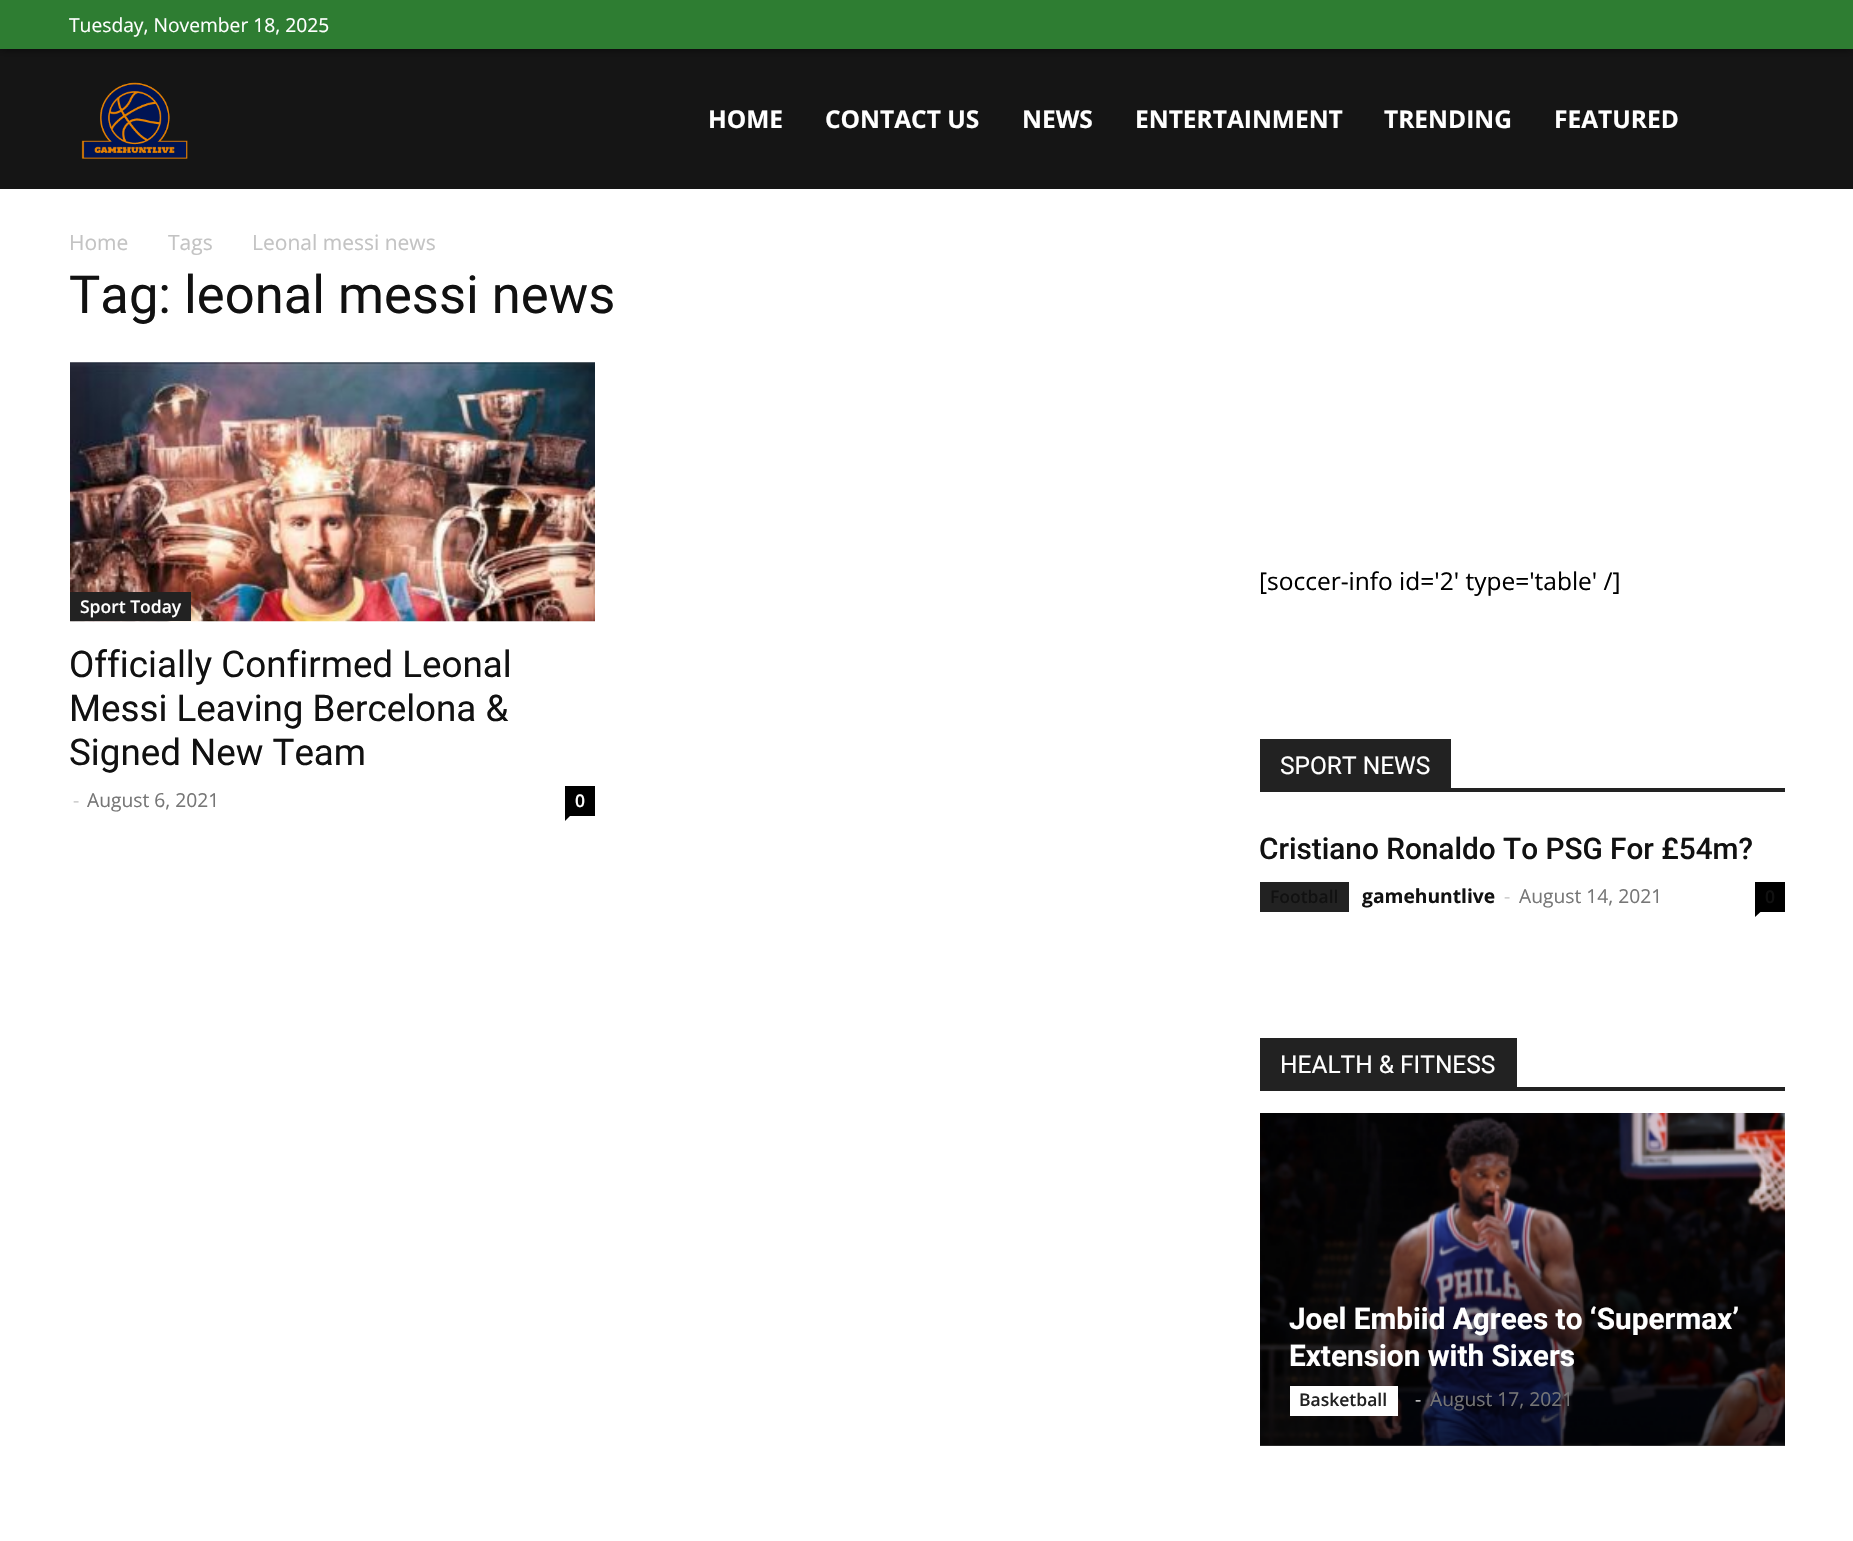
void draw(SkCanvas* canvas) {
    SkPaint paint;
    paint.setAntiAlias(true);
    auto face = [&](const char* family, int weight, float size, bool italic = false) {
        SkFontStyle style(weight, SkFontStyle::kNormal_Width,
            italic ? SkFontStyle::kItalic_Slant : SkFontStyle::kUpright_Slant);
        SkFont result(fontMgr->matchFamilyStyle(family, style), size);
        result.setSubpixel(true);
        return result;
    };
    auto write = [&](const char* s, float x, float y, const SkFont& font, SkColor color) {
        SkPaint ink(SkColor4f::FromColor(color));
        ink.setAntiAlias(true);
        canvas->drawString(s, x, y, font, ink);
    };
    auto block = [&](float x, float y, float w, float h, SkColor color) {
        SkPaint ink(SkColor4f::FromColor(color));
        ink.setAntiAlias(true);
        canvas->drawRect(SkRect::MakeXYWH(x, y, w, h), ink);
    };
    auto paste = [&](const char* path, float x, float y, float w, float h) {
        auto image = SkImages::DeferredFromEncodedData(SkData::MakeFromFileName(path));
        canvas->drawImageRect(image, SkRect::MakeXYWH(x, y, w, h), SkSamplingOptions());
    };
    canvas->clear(SK_ColorWHITE);
    block(0, 49, 1853, 140, SkColorSetRGB(21, 21, 21));
    paint.setColor(SkColorSetARGB(153, 0, 0, 0));
    paint.setMaskFilter(SkMaskFilter::MakeBlur(kNormal_SkBlurStyle, 4.5f));
    canvas->drawRect(SkRect::MakeXYWH(0, 0, 1853, 49), paint);
    paint.setMaskFilter(nullptr);
    block(0, 0, 1853, 49, SkColorSetRGB(46, 125, 50));
    auto kFont1 = face("Open Sans", 400, 19.25f);
    write("Tuesday, November 18, 2025", 69, 32, kFont1, SK_ColorWHITE);
    paste("pic1.png", 81, 82, 107, 77);
    auto kFont2 = face("Open Sans", 700, 24.5f);
    write("HOME", 708, 128, kFont2, SK_ColorWHITE);
    write("CONTACT US", 825, 128, kFont2, SK_ColorWHITE);
    write("NEWS", 1022, 128, kFont2, SK_ColorWHITE);
    write("ENTERTAINMENT", 1135, 128, kFont2, SK_ColorWHITE);
    write("TRENDING", 1384, 128, kFont2, SK_ColorWHITE);
    write("FEATURED", 1554, 128, kFont2, SK_ColorWHITE);
    auto kFont3 = face("Open Sans", 400, 21);
    write("Home", 69, 250, kFont3, SkColorSetRGB(195, 195, 195));
    write("Tags", 168, 250, kFont3, SkColorSetRGB(195, 195, 195));
    write("Leonal messi news", 252, 250, kFont3, SkColorSetRGB(195, 195, 195));
    auto kFont4 = face("Roboto", 400, 52.5f);
    write("Tag: leonal messi news", 69, 313, kFont4, SkColorSetRGB(17, 17, 17));
    paste("pic2.png", 70, 362, 525, 260);
    block(70, 592, 121, 29, SkColorSetRGB(34, 34, 34));
    auto kFont5 = face("Open Sans", 600, 17.5f);
    write("Sport Today", 80, 613, kFont5, SK_ColorWHITE);
    auto kFont6 = face("Roboto", 400, 36.75f);
    write("Officially Confirmed Leonal", 69, 677, kFont6, SkColorSetRGB(17, 17, 17));
    write("Messi Leaving Bercelona &", 69, 721, kFont6, SkColorSetRGB(17, 17, 17));
    write("Signed New Team", 69, 765, kFont6, SkColorSetRGB(17, 17, 17));
    write("-", 73, 807, kFont1, SkColorSetRGB(204, 204, 204));
    write("August 6, 2021", 87, 807, kFont1, SkColorSetRGB(118, 118, 118));
    block(565, 786, 30, 30, SK_ColorBLACK);
    write("0", 575, 807, kFont5, SK_ColorWHITE);
    paint.setColor(SK_ColorBLACK);
    canvas->drawPath(SkPathBuilder().moveTo(565, 815.5f).lineTo(570.5f, 815.5f).lineTo(565, 821).close().detach(), paint);
    auto kFont7 = face("Open Sans", 400, 24.5f);
    write("[soccer-info id='2' type='table' /]", 1259, 590, kFont7, SK_ColorBLACK);
    block(1260, 788, 525, 4, SkColorSetRGB(34, 34, 34));
    block(1260, 739, 191, 49, SkColorSetRGB(34, 34, 34));
    auto kFont8 = face("Roboto", 400, 24.5f);
    write("SPORT NEWS", 1280, 774, kFont8, SK_ColorWHITE);
    auto kFont9 = face("Roboto", 500, 29.75f);
    write("Cristiano Ronaldo To PSG For £54m?", 1259, 859, kFont9, SkColorSetRGB(17, 17, 17));
    block(1260, 882, 89, 30, SkColorSetRGB(34, 34, 34));
    write("Football", 1270, 903, kFont5, SkColorSetRGB(17, 17, 17));
    auto kFont10 = face("Open Sans", 700, 19.25f);
    write("gamehuntlive", 1362, 903, kFont10, SkColorSetRGB(17, 17, 17));
    write("-", 1504, 903, kFont1, SkColorSetRGB(204, 204, 204));
    write("August 14, 2021", 1519, 903, kFont1, SkColorSetRGB(118, 118, 118));
    block(1755, 882, 30, 30, SK_ColorBLACK);
    write("0", 1765, 903, kFont5, SkColorSetRGB(17, 17, 17));
    canvas->drawPath(SkPathBuilder().moveTo(1755, 912).lineTo(1760.5f, 912).lineTo(1755, 917).close().detach(), paint);
    block(1260, 1087, 525, 4, SkColorSetRGB(34, 34, 34));
    block(1260, 1038, 257, 49, SkColorSetRGB(34, 34, 34));
    write("HEALTH & FITNESS", 1280, 1073, kFont8, SK_ColorWHITE);
    paste("pic3.png", 1260, 1113, 525, 333);
    {
        const SkColor colors[] = {SkColorSetARGB(0, 0, 0, 0), SkColorSetARGB(179, 0, 0, 0)};
        const float stops[] = {0, 1};
        const SkPoint ends[] = {{1528, 1180}, {1528, 1446}};
        paint.setShader(SkGradientShader::MakeLinear(ends, colors, stops, 2, SkTileMode::kClamp));
        paint.setAlpha(255);
    }
    canvas->drawRect(SkRect::MakeXYWH(1260, 1188, 525, 258), paint);
    auto kFont11 = face("Roboto", 700, 29.75f);
    write("Joel Embiid Agrees to ‘Supermax’", 1289, 1329, kFont11, SK_ColorWHITE);
    write("Extension with Sixers", 1289, 1366, kFont11, SK_ColorWHITE);
    block(1290, 1386, 108, 30, SK_ColorWHITE);
    write("Basketball", 1299, 1406, kFont5, SkColorSetRGB(34, 34, 34));
    write("-", 1415, 1406, kFont1, SkColorSetRGB(204, 204, 204));
    write("August 17, 2021", 1430, 1406, kFont1, SkColorSetRGB(118, 118, 118));
}
